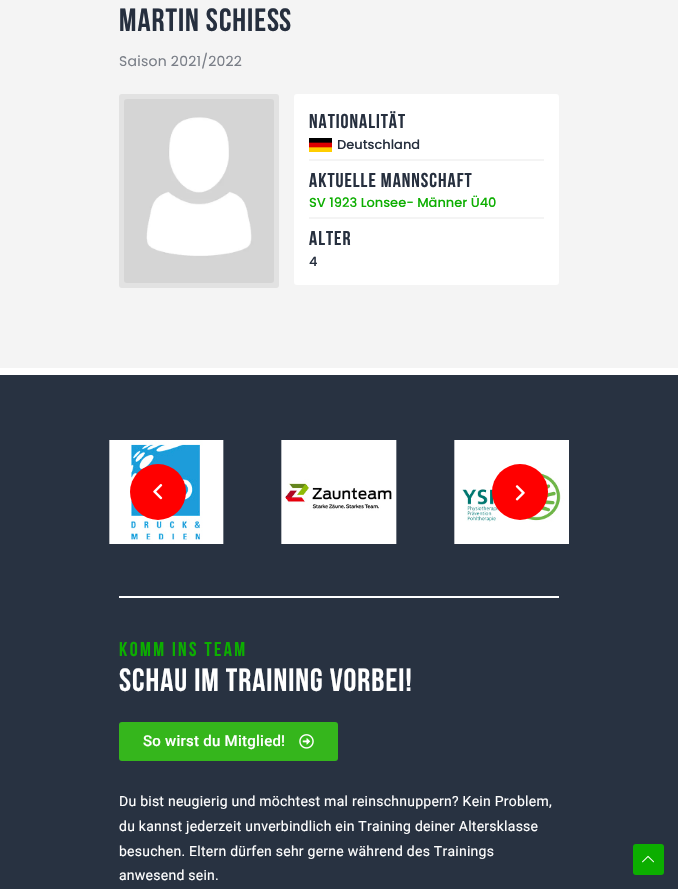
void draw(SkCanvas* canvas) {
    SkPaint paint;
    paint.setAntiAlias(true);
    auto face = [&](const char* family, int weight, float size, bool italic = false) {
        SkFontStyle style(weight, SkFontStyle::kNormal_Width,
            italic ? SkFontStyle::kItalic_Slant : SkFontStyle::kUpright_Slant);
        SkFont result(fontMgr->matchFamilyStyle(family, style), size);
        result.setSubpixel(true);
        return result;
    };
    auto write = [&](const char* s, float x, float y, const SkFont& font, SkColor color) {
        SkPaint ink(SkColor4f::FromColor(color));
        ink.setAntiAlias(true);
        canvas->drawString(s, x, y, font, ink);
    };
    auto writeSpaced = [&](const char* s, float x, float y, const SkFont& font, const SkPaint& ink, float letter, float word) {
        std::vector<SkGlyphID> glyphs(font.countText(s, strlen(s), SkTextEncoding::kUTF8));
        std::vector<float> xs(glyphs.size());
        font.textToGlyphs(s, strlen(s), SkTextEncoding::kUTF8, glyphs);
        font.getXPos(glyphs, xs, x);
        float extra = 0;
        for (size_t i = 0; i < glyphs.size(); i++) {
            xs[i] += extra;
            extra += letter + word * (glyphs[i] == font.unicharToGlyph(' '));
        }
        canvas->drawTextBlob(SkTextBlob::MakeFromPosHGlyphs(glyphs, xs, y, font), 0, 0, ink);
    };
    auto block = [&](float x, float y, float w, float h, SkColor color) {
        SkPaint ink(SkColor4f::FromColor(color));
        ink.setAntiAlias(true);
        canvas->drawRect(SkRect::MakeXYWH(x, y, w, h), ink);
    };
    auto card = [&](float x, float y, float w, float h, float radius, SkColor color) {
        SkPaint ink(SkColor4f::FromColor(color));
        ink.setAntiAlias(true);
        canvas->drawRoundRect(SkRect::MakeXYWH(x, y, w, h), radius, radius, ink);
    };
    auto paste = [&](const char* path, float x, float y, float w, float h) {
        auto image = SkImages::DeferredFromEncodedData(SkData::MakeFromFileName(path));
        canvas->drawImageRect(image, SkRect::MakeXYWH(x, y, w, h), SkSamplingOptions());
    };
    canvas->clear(SkColorSetRGB(244, 244, 244));
    auto kFont1 = face("Bebas Neue", 700, 32.25f);
    paint.setColor(SkColorSetRGB(38, 47, 62));
    writeSpaced("Martin Schieß", 119, 31, kFont1, paint, 1, 0);
    auto kFont2 = face("Poppins", 400, 14);
    paint.setColor(SkColorSetRGB(121, 126, 135));
    writeSpaced("Saison 2021/2022", 119, 66, kFont2, paint, 0.25f, 0);
    card(119, 94, 160, 194, 3, SkColorSetRGB(226, 226, 226));
    paste("pic1.png", 124, 99, 150, 184);
    card(294, 94, 265, 191, 3, SK_ColorWHITE);
    auto kFont3 = face("Bebas Neue", 700, 20);
    paint.setColor(SkColorSetRGB(38, 47, 62));
    writeSpaced("Nationalität", 309, 128, kFont3, paint, 1, 0);
    block(309, 159, 235, 2, SkColorSetRGB(244, 244, 244));
    paste("pic2.png", 309, 138, 23, 14);
    auto kFont4 = face("Poppins", 500, 13);
    write("Deutschland", 337, 149, kFont4, SkColorSetRGB(38, 47, 62));
    writeSpaced("Aktuelle Mannschaft", 309, 187, kFont3, paint, 1, 0);
    block(309, 217, 235, 2, SkColorSetRGB(244, 244, 244));
    write("SV 1923 Lonsee- Männer Ü40", 309, 207, kFont4, SkColorSetRGB(12, 174, 0));
    writeSpaced("Alter", 309, 245, kFont3, paint, 1, 0);
    write("4", 309, 266, kFont4, SkColorSetRGB(38, 47, 62));
    block(0, 368, 678, 7, SK_ColorWHITE);
    block(0, 375, 678, 514, SkColorSetRGB(40, 50, 65));
    paste("pic3.png", 109, 440, 115, 104);
    paste("pic4.png", 281, 440, 116, 104);
    paste("pic5.png", 454, 440, 115, 104);
    paint.setColor(SkColorSetRGB(255, 0, 0));
    canvas->drawCircle(158, 492, 28, paint);
    paste("pic6.png", 153, 484, 10, 16);
    canvas->drawCircle(520, 492, 28, paint);
    paste("pic7.png", 515, 485, 10, 16);
    block(119, 596, 440, 2, SK_ColorWHITE);
    paint.setColor(SkColorSetRGB(12, 174, 0));
    writeSpaced("Komm ins Team", 119, 656, kFont3, paint, 2.4f, 0);
    paint.setColor(SK_ColorWHITE);
    writeSpaced("Schau im Training vorbei!", 119, 691, kFont1, paint, 1, 0);
    card(119, 722, 219, 39, 3, SkColorSetRGB(53, 182, 28));
    auto kFont5 = face("Roboto", 500, 15);
    writeSpaced("So wirst du Mitglied!", 143, 746, kFont5, paint, 0.25f, 0);
    paste("pic8.png", 299, 734, 15, 15);
    auto kFont6 = face("Roboto", 400, 14);
    writeSpaced("Du bist neugierig und möchtest mal reinschnuppern? Kein Problem,", 119, 806, kFont6, paint, 0.25f, 0);
    writeSpaced("du kannst jederzeit unverbindlich ein Training deiner Altersklasse", 119, 831, kFont6, paint, 0.25f, 0);
    writeSpaced("besuchen. Eltern dürfen sehr gerne während des Trainings", 119, 856, kFont6, paint, 0.25f, 0);
    writeSpaced("anwesend sein.", 119, 880, kFont6, paint, 0.25f, 0);
    card(633, 844, 31, 31, 3, SkColorSetRGB(12, 174, 0));
    paste("pic9.png", 642, 855, 12, 8);
}
